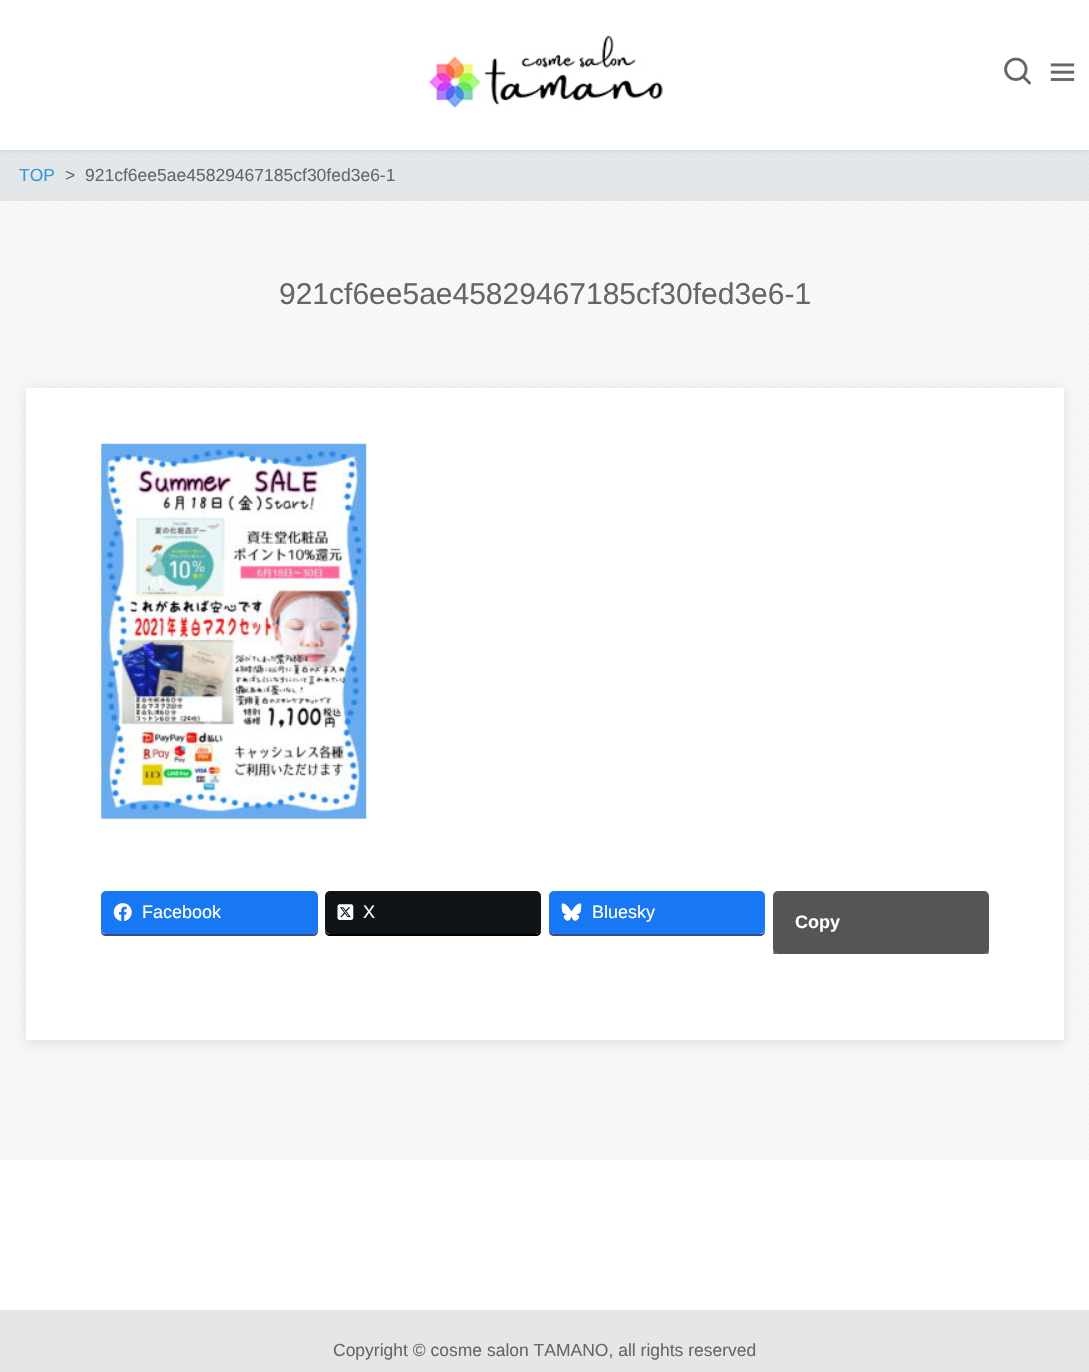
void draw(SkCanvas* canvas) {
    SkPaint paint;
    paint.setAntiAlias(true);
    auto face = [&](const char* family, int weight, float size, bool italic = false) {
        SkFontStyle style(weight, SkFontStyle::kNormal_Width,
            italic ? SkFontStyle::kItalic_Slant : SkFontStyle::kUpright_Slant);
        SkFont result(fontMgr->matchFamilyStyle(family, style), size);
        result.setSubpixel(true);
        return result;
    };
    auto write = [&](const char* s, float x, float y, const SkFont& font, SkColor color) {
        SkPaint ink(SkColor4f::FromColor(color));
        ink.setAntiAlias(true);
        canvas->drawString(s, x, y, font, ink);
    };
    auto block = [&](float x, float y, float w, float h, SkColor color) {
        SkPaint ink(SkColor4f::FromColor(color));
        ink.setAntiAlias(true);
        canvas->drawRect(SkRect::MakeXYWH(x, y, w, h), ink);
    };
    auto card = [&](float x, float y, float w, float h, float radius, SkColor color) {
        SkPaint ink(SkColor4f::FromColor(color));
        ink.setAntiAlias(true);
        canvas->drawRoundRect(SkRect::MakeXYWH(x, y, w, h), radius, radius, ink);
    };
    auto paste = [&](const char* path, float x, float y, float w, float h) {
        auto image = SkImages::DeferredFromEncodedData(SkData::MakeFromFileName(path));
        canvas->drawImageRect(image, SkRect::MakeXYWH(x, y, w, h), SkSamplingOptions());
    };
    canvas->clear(SK_ColorWHITE);
    block(0, 150, 1089, 1010, SkColorSetRGB(245, 245, 245));
    paste("pic4.png", 0, 150, 1089, 1010);
    block(0, 150, 1089, 51, SkColorSetARGB(51, 145, 163, 174));
    canvas->save();
    canvas->clipRect(SkRect::MakeXYWH(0, 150, 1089, 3));
    paint.setColor(SkColorSetARGB(26, 0, 0, 0));
    paint.setMaskFilter(SkMaskFilter::MakeBlur(kNormal_SkBlurStyle, 3));
    canvas->drawRect(SkRect::MakeXYWH(0, 0, 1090, 150), paint);
    paint.setMaskFilter(nullptr);
    canvas->restore();
    paste("pic1.png", 428, 35, 235, 73);
    paste("pic2.png", 1004, 57, 28, 28);
    paste("pic3.png", 1050, 63, 25, 18);
    auto kFont1 = face("Liberation Sans", 400, 17.5f);
    write("TOP", 19, 181, kFont1, SkColorSetRGB(51, 152, 219));
    write(">", 65, 181, kFont1, SkColorSetRGB(102, 102, 102));
    write("921cf6ee5ae45829467185cf30fed3e6-1", 85, 181, kFont1, SkColorSetRGB(102, 102, 102));
    auto kFont2 = face("Liberation Sans", 400, 30);
    write("921cf6ee5ae45829467185cf30fed3e6-1", 279, 304, kFont2, SkColorSetRGB(102, 102, 102));
    paint.setMaskFilter(SkMaskFilter::MakeBlur(kNormal_SkBlurStyle, 6));
    canvas->drawRect(SkRect::MakeXYWH(26, 390, 1038, 653), paint);
    paint.setMaskFilter(nullptr);
    block(26, 388, 1038, 652, SK_ColorWHITE);
    paste("pic5.png", 101, 443, 266, 376);
    paint.setColor(SkColorSetRGB(52, 78, 132));
    canvas->drawPath(SkPathBuilder().moveTo(101, 897).lineTo(101, 931).cubicTo(101, 934, 103, 936, 106, 936).lineTo(313, 936).cubicTo(316, 936, 318, 934, 318, 931).lineTo(318, 899).lineTo(318, 897).lineTo(318, 929).cubicTo(318, 932, 315, 934, 312, 934).lineTo(106, 934).cubicTo(103, 934, 101, 932, 101, 929).close().detach(), paint);
    card(101, 891, 217, 43, 5, SkColorSetRGB(24, 119, 242));
    paste("pic6.png", 113, 903, 19, 19);
    auto kFont3 = face("Liberation Sans", 400, 18);
    write("Facebook", 142, 918, kFont3, SK_ColorWHITE);
    paint.setColor(SK_ColorBLACK);
    canvas->drawPath(SkPathBuilder().moveTo(325, 929).lineTo(325, 931).cubicTo(325, 934, 327, 936, 330, 936).lineTo(536, 936).cubicTo(539, 936, 541, 934, 541, 931).lineTo(541, 930).cubicTo(540, 932, 538, 934, 536, 934).lineTo(330, 934).cubicTo(327, 934, 325, 932, 325, 929).close().detach(), paint);
    card(325, 891, 216, 43, 5, SkColorSetRGB(15, 20, 25));
    paste("pic7.png", 337, 904, 17, 16);
    write("X", 363, 918, kFont3, SK_ColorWHITE);
    paint.setColor(SkColorSetRGB(52, 78, 132));
    canvas->drawPath(SkPathBuilder().moveTo(549, 930).lineTo(549, 931).cubicTo(549, 934, 551, 936, 554, 936).lineTo(760, 936).cubicTo(763, 936, 765, 934, 765, 931).lineTo(765, 929).cubicTo(765, 932, 763, 934, 760, 934).lineTo(554, 934).cubicTo(552, 934, 550, 932, 549, 930).close().detach(), paint);
    card(549, 891, 216, 43, 5, SkColorSetRGB(24, 119, 242));
    paste("pic8.png", 561, 903, 21, 18);
    write("Bluesky", 592, 918, kFont3, SK_ColorWHITE);
    canvas->save();
    canvas->clipRect(SkRect::MakeXYWH(101, 891, 888, 63));
    paint.setColor(SkColorSetRGB(51, 51, 51));
    canvas->drawPath(SkPathBuilder().moveTo(773, 951).cubicTo(773, 962, 804, 956, 812, 956).lineTo(984, 956).cubicTo(991, 956, 989, 946, 989, 942).lineTo(989, 897).lineTo(989, 949).cubicTo(989, 952, 987, 954, 984, 954).lineTo(778, 954).cubicTo(776, 954, 774, 953, 773, 951).close().detach(), paint);
    canvas->restore();
    card(773, 891, 216, 63, 5, SkColorSetRGB(85, 85, 85));
    auto kFont4 = face("Liberation Sans", 700, 18);
    write("Copy", 795, 928, kFont4, SK_ColorWHITE);
    block(0, 1310, 1089, 62, SkColorSetRGB(230, 230, 230));
    write("Copyright © cosme salon TAMANO, all rights reserved", 333, 1356, kFont1, SkColorSetRGB(102, 102, 102));
}
